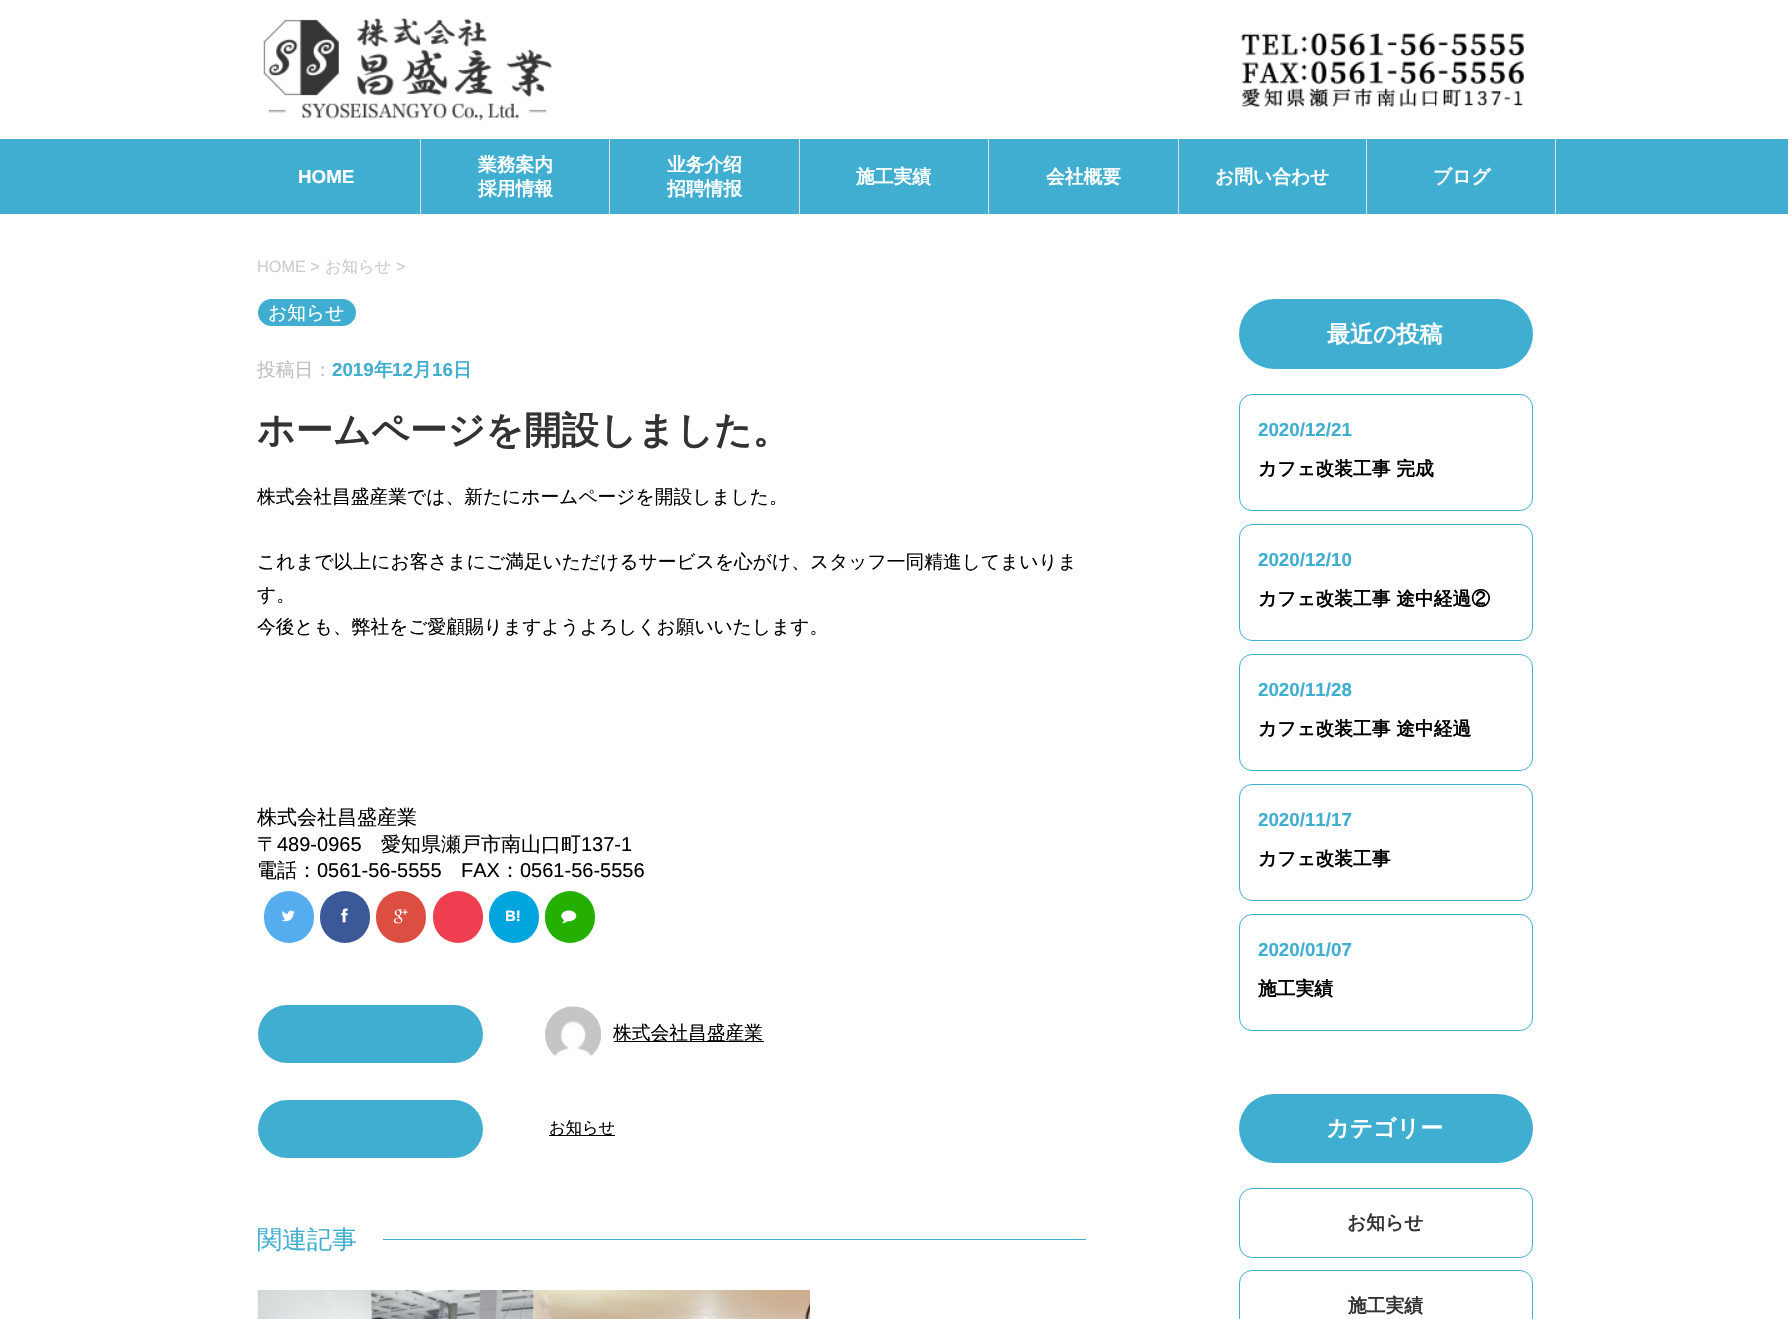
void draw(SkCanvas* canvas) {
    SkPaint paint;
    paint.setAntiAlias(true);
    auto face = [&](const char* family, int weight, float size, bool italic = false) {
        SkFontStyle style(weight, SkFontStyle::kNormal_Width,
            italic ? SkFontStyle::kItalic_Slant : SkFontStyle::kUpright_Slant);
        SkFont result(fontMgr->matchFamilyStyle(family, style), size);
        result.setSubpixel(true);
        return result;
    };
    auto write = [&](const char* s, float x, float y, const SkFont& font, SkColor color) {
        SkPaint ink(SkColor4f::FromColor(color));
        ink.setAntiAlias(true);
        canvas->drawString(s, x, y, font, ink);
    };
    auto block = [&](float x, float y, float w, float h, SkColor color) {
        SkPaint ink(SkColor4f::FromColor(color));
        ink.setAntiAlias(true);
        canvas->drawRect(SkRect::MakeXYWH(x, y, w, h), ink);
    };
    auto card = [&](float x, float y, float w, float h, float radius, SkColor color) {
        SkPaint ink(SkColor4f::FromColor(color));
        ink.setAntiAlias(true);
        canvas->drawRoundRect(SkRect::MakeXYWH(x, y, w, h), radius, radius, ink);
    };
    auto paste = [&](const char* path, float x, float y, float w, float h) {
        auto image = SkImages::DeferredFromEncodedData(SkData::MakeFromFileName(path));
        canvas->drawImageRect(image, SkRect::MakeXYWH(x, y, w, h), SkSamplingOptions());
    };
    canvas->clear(SK_ColorWHITE);
    paste("pic1.png", 263, 18, 289, 103);
    paste("pic2.png", 1241, 32, 283, 75);
    block(0, 139, 1788, 75, SkColorSetRGB(64, 174, 208));
    block(420, 139, 1, 75, SkColorSetRGB(224, 222, 222));
    auto kFont1 = face("Liberation Sans", 700, 18.75f);
    write("HOME", 298, 183, kFont1, SK_ColorWHITE);
    block(609, 139, 1, 75, SkColorSetRGB(224, 222, 222));
    auto kFont2 = face("WenQuanYi Zen Hei", 700, 18.75f);
    write("業務案内", 478, 171, kFont2, SK_ColorWHITE);
    write("採用情報", 478, 195, kFont2, SK_ColorWHITE);
    block(799, 139, 1, 75, SkColorSetRGB(224, 222, 222));
    write("业务介绍", 667, 171, kFont2, SK_ColorWHITE);
    write("招聘情报", 667, 195, kFont2, SK_ColorWHITE);
    block(988, 139, 1, 75, SkColorSetRGB(224, 222, 222));
    write("施工実績", 856, 183, kFont2, SK_ColorWHITE);
    block(1178, 139, 1, 75, SkColorSetRGB(224, 222, 222));
    write("会社概要", 1046, 183, kFont2, SK_ColorWHITE);
    block(1366, 139, 1, 75, SkColorSetRGB(224, 222, 222));
    write("お問い合わせ", 1215, 183, kFont2, SK_ColorWHITE);
    block(1555, 139, 1, 75, SkColorSetRGB(224, 222, 222));
    write("ブログ", 1433, 183, kFont2, SK_ColorWHITE);
    auto kFont3 = face("Liberation Sans", 400, 16.25f);
    write("HOME >", 257, 272, kFont3, SkColorSetRGB(204, 204, 204));
    auto kFont4 = face("WenQuanYi Zen Hei", 500, 16.25f);
    write("お知らせ", 325, 272, kFont4, SkColorSetRGB(204, 204, 204));
    write(">", 396, 272, kFont3, SkColorSetRGB(204, 204, 204));
    card(258, 299, 98, 27, 13.5f, SkColorSetRGB(64, 174, 208));
    auto kFont5 = face("WenQuanYi Zen Hei", 500, 18.75f);
    write("お知らせ", 268, 319, kFont5, SK_ColorWHITE);
    write("投稿日：", 257, 376, kFont5, SkColorSetRGB(189, 189, 189));
    write("2019", 332, 376, kFont1, SkColorSetRGB(64, 174, 208));
    write("年", 374, 376, kFont2, SkColorSetRGB(64, 174, 208));
    write("12", 392, 376, kFont1, SkColorSetRGB(64, 174, 208));
    write("月", 413, 376, kFont2, SkColorSetRGB(64, 174, 208));
    write("16", 432, 376, kFont1, SkColorSetRGB(64, 174, 208));
    write("日", 453, 376, kFont2, SkColorSetRGB(64, 174, 208));
    auto kFont6 = face("WenQuanYi Zen Hei", 700, 37.5f);
    write("ホームページを開設しました。", 257, 443, kFont6, SkColorSetRGB(51, 51, 51));
    write("株式会社昌盛産業では、新たにホームページを開設しました。", 257, 503, kFont5, SK_ColorBLACK);
    write("これまで以上にお客さまにご満足いただけるサービスを心がけ、スタッフ一同精進してまいりま", 257, 568, kFont5, SK_ColorBLACK);
    write("す。", 257, 601, kFont5, SK_ColorBLACK);
    write("今後とも、弊社をご愛顧賜りますようよろしくお願いいたします。", 257, 633, kFont5, SK_ColorBLACK);
    auto kFont7 = face("WenQuanYi Zen Hei", 500, 20);
    write("株式会社昌盛産業", 257, 824, kFont7, SK_ColorBLACK);
    write("〒", 257, 851, kFont7, SK_ColorBLACK);
    auto kFont8 = face("Liberation Sans", 400, 20);
    write("489-0965", 277, 851, kFont8, SK_ColorBLACK);
    write("愛知県瀬戸市南山口町", 381, 851, kFont7, SK_ColorBLACK);
    write("137-1", 581, 851, kFont8, SK_ColorBLACK);
    write("電話：", 257, 877, kFont7, SK_ColorBLACK);
    write("0561-56-5555", 317, 877, kFont8, SK_ColorBLACK);
    write("FAX", 461, 877, kFont8, SK_ColorBLACK);
    write("：", 500, 877, kFont7, SK_ColorBLACK);
    write("0561-56-5556", 520, 877, kFont8, SK_ColorBLACK);
    card(264, 891, 50, 52, 25, SkColorSetRGB(85, 172, 238));
    paste("pic3.png", 281, 910, 14, 12);
    card(320, 891, 50, 52, 25, SkColorSetRGB(59, 89, 152));
    paste("pic4.png", 341, 908, 7, 15);
    card(376, 891, 50, 52, 25, SkColorSetRGB(220, 78, 65));
    paste("pic5.png", 393, 909, 15, 15);
    card(433, 891, 50, 52, 25, SkColorSetRGB(240, 62, 81));
    card(489, 891, 50, 52, 25, SkColorSetRGB(0, 165, 222));
    auto kFont9 = face("Liberation Sans", 700, 15);
    write("B!", 505, 921, kFont9, SK_ColorWHITE);
    card(545, 891, 50, 52, 25, SkColorSetRGB(37, 175, 0));
    paste("pic6.png", 561, 910, 16, 14);
    card(258, 1005, 225, 58, 29, SkColorSetRGB(64, 174, 208));
    paste("pic7.png", 545, 1006, 56, 50);
    block(614, 1041, 150, 1, SK_ColorBLACK);
    write("株式会社昌盛産業", 613, 1039, kFont5, SK_ColorBLACK);
    card(258, 1100, 225, 58, 29, SkColorSetRGB(64, 174, 208));
    block(549, 1135, 66, 1, SK_ColorBLACK);
    write("お知らせ", 549, 1133, kFont4, SK_ColorBLACK);
    block(383, 1239, 703, 1, SkColorSetRGB(64, 174, 208));
    auto kFont10 = face("WenQuanYi Zen Hei", 500, 25);
    write("関連記事", 257, 1248, kFont10, SkColorSetRGB(64, 174, 208));
    paste("pic8.png", 257, 1290, 277, 29);
    paste("pic9.png", 534, 1290, 276, 29);
    card(1239, 299, 294, 70, 35, SkColorSetRGB(64, 174, 208));
    auto kFont11 = face("WenQuanYi Zen Hei", 700, 23);
    write("最近の投稿", 1327, 342, kFont11, SK_ColorWHITE);
    paint.setStyle(SkPaint::kStroke_Style);
    paint.setStrokeWidth(1);
    paint.setColor(SkColorSetRGB(64, 174, 208));
    canvas->drawRoundRect(SkRect::MakeXYWH(1239.5f, 394.5f, 293, 116), 12.5f, 12.5f, paint);
    write("2020/12/21", 1258, 436, kFont1, SkColorSetRGB(64, 174, 208));
    write("カフェ改装工事 完成", 1258, 475, kFont2, SK_ColorBLACK);
    canvas->drawRoundRect(SkRect::MakeXYWH(1239.5f, 524.5f, 293, 116), 12.5f, 12.5f, paint);
    write("2020/12/10", 1258, 566, kFont1, SkColorSetRGB(64, 174, 208));
    write("カフェ改装工事 途中経過②", 1258, 605, kFont2, SK_ColorBLACK);
    canvas->drawRoundRect(SkRect::MakeXYWH(1239.5f, 654.5f, 293, 116), 12.5f, 12.5f, paint);
    write("2020/11/28", 1258, 696, kFont1, SkColorSetRGB(64, 174, 208));
    write("カフェ改装工事 途中経過", 1258, 735, kFont2, SK_ColorBLACK);
    canvas->drawRoundRect(SkRect::MakeXYWH(1239.5f, 784.5f, 293, 116), 12.5f, 12.5f, paint);
    write("2020/11/17", 1258, 826, kFont1, SkColorSetRGB(64, 174, 208));
    write("カフェ改装工事", 1258, 865, kFont2, SK_ColorBLACK);
    canvas->drawRoundRect(SkRect::MakeXYWH(1239.5f, 914.5f, 293, 116), 12.5f, 12.5f, paint);
    write("2020/01/07", 1258, 956, kFont1, SkColorSetRGB(64, 174, 208));
    write("施工実績", 1258, 995, kFont2, SK_ColorBLACK);
    card(1239, 1094, 294, 69, 34.5f, SkColorSetRGB(64, 174, 208));
    write("カテゴリー", 1326, 1136, kFont11, SK_ColorWHITE);
    canvas->drawRoundRect(SkRect::MakeXYWH(1239.5f, 1188.5f, 293, 69), 12.5f, 12.5f, paint);
    write("お知らせ", 1347, 1229, kFont2, SkColorSetRGB(51, 51, 51));
    canvas->drawRoundRect(SkRect::MakeXYWH(1239.5f, 1270.5f, 293, 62), 12.5f, 12.5f, paint);
    write("施工実績", 1348, 1312, kFont2, SkColorSetRGB(51, 51, 51));
}
